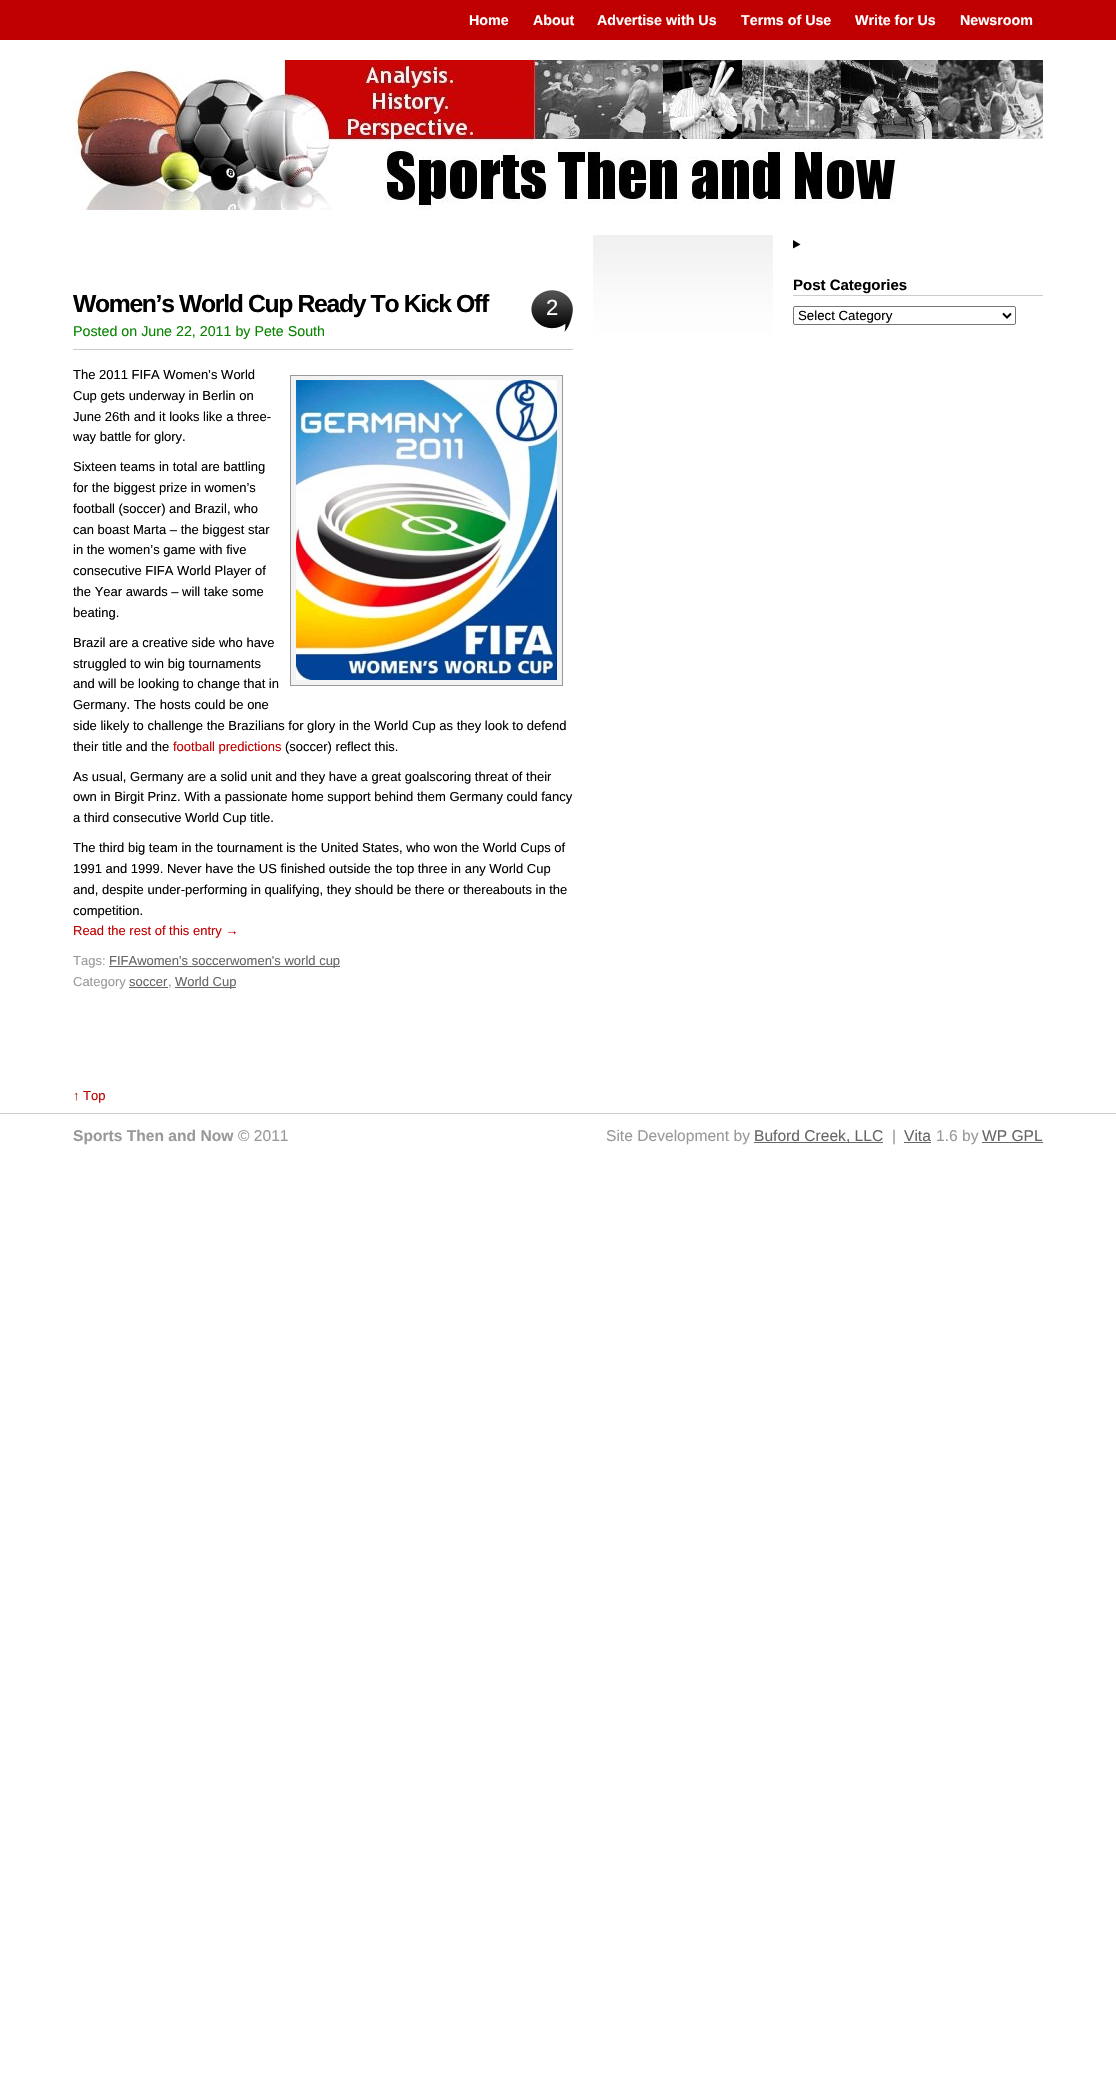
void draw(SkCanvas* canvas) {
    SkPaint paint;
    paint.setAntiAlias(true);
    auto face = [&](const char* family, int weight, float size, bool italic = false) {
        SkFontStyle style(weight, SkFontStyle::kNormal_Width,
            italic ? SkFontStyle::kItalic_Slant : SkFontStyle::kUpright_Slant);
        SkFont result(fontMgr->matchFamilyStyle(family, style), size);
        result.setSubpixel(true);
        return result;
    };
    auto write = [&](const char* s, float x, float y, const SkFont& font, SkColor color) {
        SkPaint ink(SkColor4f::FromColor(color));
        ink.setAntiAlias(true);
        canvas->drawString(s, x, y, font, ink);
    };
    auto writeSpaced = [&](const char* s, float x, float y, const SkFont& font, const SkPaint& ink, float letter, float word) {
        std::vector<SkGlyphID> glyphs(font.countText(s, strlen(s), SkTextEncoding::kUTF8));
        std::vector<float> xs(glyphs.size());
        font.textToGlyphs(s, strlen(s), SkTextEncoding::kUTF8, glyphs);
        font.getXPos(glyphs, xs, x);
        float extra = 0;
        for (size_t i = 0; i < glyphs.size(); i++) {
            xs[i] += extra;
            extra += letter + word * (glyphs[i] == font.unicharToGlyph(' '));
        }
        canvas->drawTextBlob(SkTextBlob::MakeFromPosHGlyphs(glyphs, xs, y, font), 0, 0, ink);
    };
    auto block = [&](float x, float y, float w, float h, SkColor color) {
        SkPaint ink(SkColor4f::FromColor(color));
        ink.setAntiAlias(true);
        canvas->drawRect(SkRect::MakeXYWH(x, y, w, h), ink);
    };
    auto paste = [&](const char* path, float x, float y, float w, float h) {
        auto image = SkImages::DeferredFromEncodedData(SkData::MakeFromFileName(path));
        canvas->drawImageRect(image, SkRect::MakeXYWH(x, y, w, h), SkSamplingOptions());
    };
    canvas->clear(SK_ColorWHITE);
    block(0, 0, 1116, 40, SkColorSetRGB(192, 0, 0));
    auto kFont1 = face("Liberation Sans", 700, 14.25f);
    write("Home", 469, 25, kFont1, SK_ColorWHITE);
    write("About", 533, 25, kFont1, SK_ColorWHITE);
    write("Advertise with Us", 597, 25, kFont1, SK_ColorWHITE);
    write("Terms of Use", 741, 25, kFont1, SK_ColorWHITE);
    write("Write for Us", 855, 25, kFont1, SK_ColorWHITE);
    write("Newsroom", 960, 25, kFont1, SK_ColorWHITE);
    paste("pic1.png", 73, 60, 970, 150);
    auto kFont2 = face("Liberation Sans", 700, 24.75f);
    paint.setColor(SK_ColorBLACK);
    writeSpaced("Women’s World Cup Ready To Kick Off", 73, 312, kFont2, paint, -1.35f, 0);
    paste("pic2.png", 531, 290, 42, 42);
    auto kFont3 = face("Liberation Sans", 400, 22);
    paint.setColor(SK_ColorWHITE);
    writeSpaced("2", 546, 315, kFont3, paint, -1.35f, 0);
    block(73, 349, 500, 1, SkColorSetRGB(204, 204, 204));
    auto kFont4 = face("Liberation Sans", 400, 14.25f);
    write("Posted on June 22, 2011 by Pete South", 73, 336, kFont4, SkColorSetRGB(9, 132, 0));
    auto kFont5 = face("Liberation Sans", 400, 13);
    write("The 2011 FIFA Women’s World", 73, 379, kFont5, SK_ColorBLACK);
    write("Cup gets underway in Berlin on", 73, 400, kFont5, SK_ColorBLACK);
    write("June 26th and it looks like a three-", 73, 421, kFont5, SK_ColorBLACK);
    write("way battle for glory.", 73, 441, kFont5, SK_ColorBLACK);
    paint.setColor(SkColorSetRGB(243, 243, 243));
    canvas->drawRect(SkRect::MakeXYWH(290.5f, 375.5f, 272, 310), paint);
    paint.setStyle(SkPaint::kStroke_Style);
    paint.setStrokeWidth(1);
    paint.setColor(SkColorSetRGB(153, 153, 153));
    canvas->drawRect(SkRect::MakeXYWH(290.5f, 375.5f, 272, 310), paint);
    paste("pic3.png", 296, 380, 261, 300);
    write("Sixteen teams in total are battling", 73, 471, kFont5, SK_ColorBLACK);
    write("for the biggest prize in women’s", 73, 492, kFont5, SK_ColorBLACK);
    write("football (soccer) and Brazil, who", 73, 513, kFont5, SK_ColorBLACK);
    write("can boast Marta – the biggest star", 73, 534, kFont5, SK_ColorBLACK);
    write("in the women’s game with five", 73, 554, kFont5, SK_ColorBLACK);
    write("consecutive FIFA World Player of", 73, 575, kFont5, SK_ColorBLACK);
    write("the Year awards – will take some", 73, 596, kFont5, SK_ColorBLACK);
    write("beating.", 73, 617, kFont5, SK_ColorBLACK);
    write("Brazil are a creative side who have", 73, 647, kFont5, SK_ColorBLACK);
    write("struggled to win big tournaments", 73, 668, kFont5, SK_ColorBLACK);
    write("and will be looking to change that in", 73, 688, kFont5, SK_ColorBLACK);
    write("Germany. The hosts could be one", 73, 709, kFont5, SK_ColorBLACK);
    write("side likely to challenge the Brazilians for glory in the World Cup as they look to defend", 73, 730, kFont5, SK_ColorBLACK);
    write("their title and the", 73, 751, kFont5, SK_ColorBLACK);
    write("football predictions", 173, 751, kFont5, SkColorSetRGB(192, 0, 0));
    write("(soccer) reflect this.", 285, 751, kFont5, SK_ColorBLACK);
    write("As usual, Germany are a solid unit and they have a great goalscoring threat of their", 73, 781, kFont5, SK_ColorBLACK);
    write("own in Birgit Prinz. With a passionate home support behind them Germany could fancy", 73, 801, kFont5, SK_ColorBLACK);
    write("a third consecutive World Cup title.", 73, 822, kFont5, SK_ColorBLACK);
    write("The third big team in the tournament is the United States, who won the World Cups of", 73, 852, kFont5, SK_ColorBLACK);
    write("1991 and 1999. Never have the US finished outside the top three in any World Cup", 73, 873, kFont5, SK_ColorBLACK);
    write("and, despite under-performing in qualifying, they should be there or thereabouts in the", 73, 894, kFont5, SK_ColorBLACK);
    write("competition.", 73, 915, kFont5, SK_ColorBLACK);
    write("Read the rest of this entry →", 73, 935, kFont5, SkColorSetRGB(192, 0, 0));
    write("Tags:", 73, 965, kFont5, SkColorSetRGB(153, 153, 153));
    block(109, 966, 231, 1, SkColorSetRGB(102, 102, 102));
    write("FIFAwomen's soccerwomen's world cup", 109, 965, kFont5, SkColorSetRGB(102, 102, 102));
    write("Category", 73, 986, kFont5, SkColorSetRGB(153, 153, 153));
    write("soccer", 129, 986, kFont5, SkColorSetRGB(102, 102, 102));
    write(",", 168, 986, kFont5, SkColorSetRGB(153, 153, 153));
    block(129, 987, 39, 1, SkColorSetRGB(102, 102, 102));
    block(175, 987, 61, 1, SkColorSetRGB(102, 102, 102));
    write("World Cup", 175, 986, kFont5, SkColorSetRGB(102, 102, 102));
    paste("pic4.png", 593, 235, 180, 130);
    paint.setStyle(SkPaint::kFill_Style);
    paint.setColor(SK_ColorBLACK);
    canvas->drawPath(SkPathBuilder().moveTo(793, 240).lineTo(800.5f, 244.5f).lineTo(793, 248.5f).close().detach(), paint);
    block(793, 295, 250, 1, SkColorSetRGB(204, 204, 204));
    auto kFont6 = face("Liberation Sans", 700, 15);
    write("Post Categories", 793, 290, kFont6, SK_ColorBLACK);
    paint.setStyle(SkPaint::kStroke_Style);
    paint.setColor(SkColorSetRGB(118, 118, 118));
    canvas->drawRoundRect(SkRect::MakeXYWH(793.5f, 306.5f, 222, 18), 1.5f, 1.5f, paint);
    paint.setStrokeWidth(2);
    paint.setColor(SK_ColorBLACK);
    canvas->drawPath(SkPathBuilder().moveTo(1003, 313.5f).lineTo(1007, 317.5f).lineTo(1011, 313.5f).detach(), paint);
    auto kFont7 = face("Liberation Sans", 400, 13.25f);
    write("Select Category", 798, 320, kFont7, SK_ColorBLACK);
    write("↑ Top", 73, 1100, kFont5, SkColorSetRGB(192, 0, 0));
    block(0, 1113, 1116, 1, SkColorSetRGB(204, 204, 204));
    auto kFont8 = face("Liberation Sans", 700, 15.6f);
    write("Sports Then and Now", 73, 1141, kFont8, SkColorSetRGB(153, 153, 153));
    auto kFont9 = face("Liberation Sans", 400, 15.6f);
    write("© 2011", 238, 1141, kFont9, SkColorSetRGB(153, 153, 153));
    write("Site Development by", 606, 1141, kFont9, SkColorSetRGB(153, 153, 153));
    block(754, 1142, 129, 1, SkColorSetRGB(102, 102, 102));
    write("Buford Creek, LLC", 754, 1141, kFont9, SkColorSetRGB(102, 102, 102));
    write("|", 892, 1141, kFont9, SkColorSetRGB(153, 153, 153));
    write("Vita", 904, 1141, kFont9, SkColorSetRGB(102, 102, 102));
    block(904, 1142, 27, 1, SkColorSetRGB(102, 102, 102));
    write("1.6 by", 936, 1141, kFont9, SkColorSetRGB(153, 153, 153));
    write("WP GPL", 982, 1141, kFont9, SkColorSetRGB(102, 102, 102));
    block(982, 1142, 61, 1, SkColorSetRGB(102, 102, 102));
}
